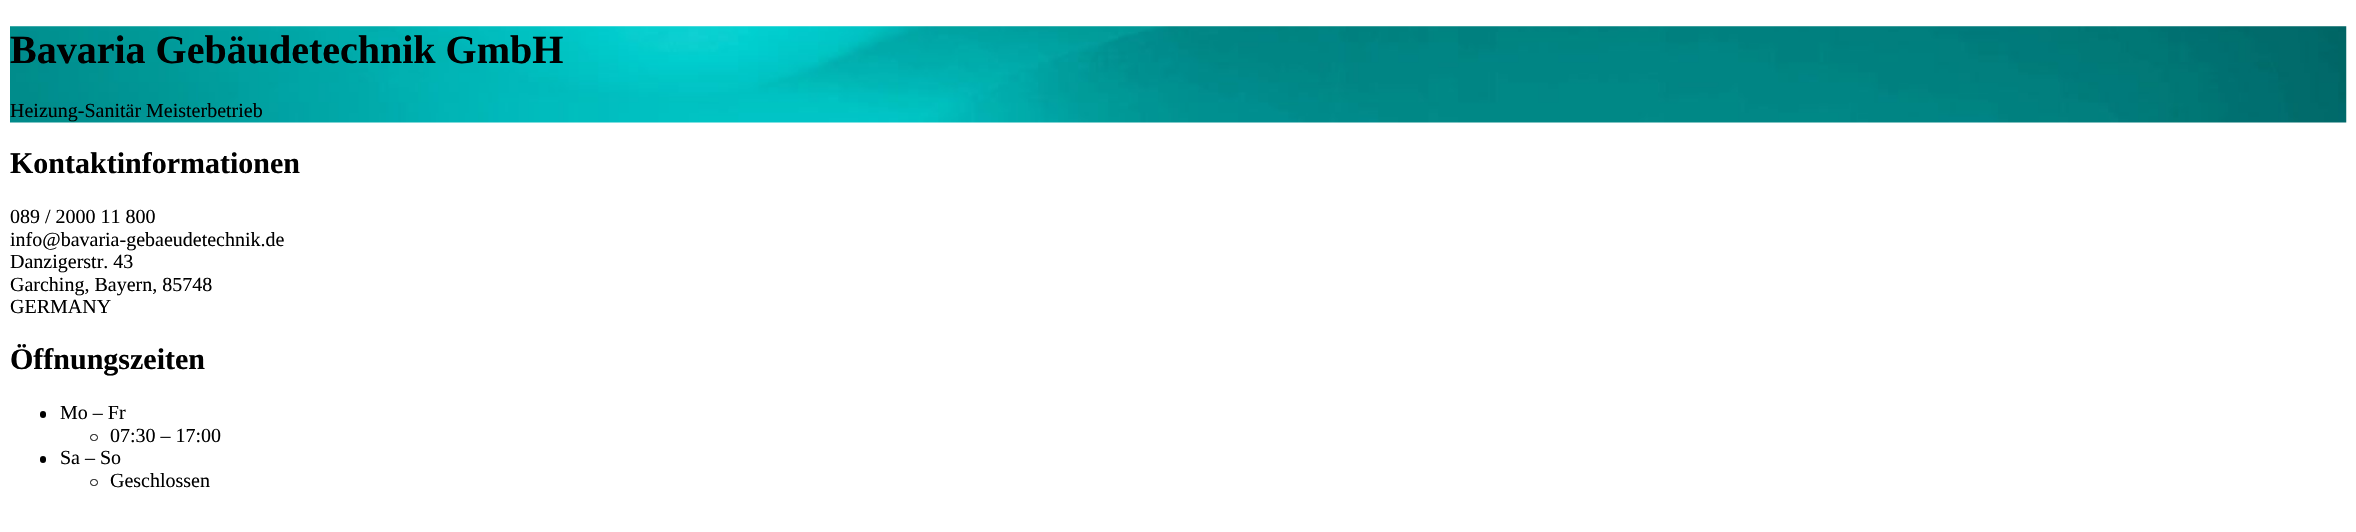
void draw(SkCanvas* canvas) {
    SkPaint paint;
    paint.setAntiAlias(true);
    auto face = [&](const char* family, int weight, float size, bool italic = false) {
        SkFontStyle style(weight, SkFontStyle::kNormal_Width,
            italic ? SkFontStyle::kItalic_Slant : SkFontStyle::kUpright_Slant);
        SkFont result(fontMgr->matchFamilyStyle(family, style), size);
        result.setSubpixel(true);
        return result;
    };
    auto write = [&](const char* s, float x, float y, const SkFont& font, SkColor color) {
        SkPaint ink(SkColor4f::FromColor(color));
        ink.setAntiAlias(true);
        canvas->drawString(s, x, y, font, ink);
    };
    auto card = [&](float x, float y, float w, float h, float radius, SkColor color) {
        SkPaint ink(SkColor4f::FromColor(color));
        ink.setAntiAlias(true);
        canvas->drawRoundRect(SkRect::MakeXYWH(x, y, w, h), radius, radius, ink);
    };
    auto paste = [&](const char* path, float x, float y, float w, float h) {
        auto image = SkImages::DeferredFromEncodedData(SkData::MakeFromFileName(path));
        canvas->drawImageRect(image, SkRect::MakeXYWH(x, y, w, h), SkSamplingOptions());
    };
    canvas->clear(SK_ColorWHITE);
    paste("pic1.png", 10, 26, 2337, 97);
    auto kFont1 = face("Liberation Serif", 700, 40);
    write("Bavaria Gebäudetechnik GmbH", 10, 63, kFont1, SK_ColorBLACK);
    auto kFont2 = face("Liberation Serif", 400, 20);
    write("Heizung-Sanitär Meisterbetrieb", 10, 117, kFont2, SK_ColorBLACK);
    auto kFont3 = face("Liberation Serif", 700, 30);
    write("Kontaktinformationen", 10, 173, kFont3, SK_ColorBLACK);
    write("089 / 2000 11 800", 10, 223, kFont2, SK_ColorBLACK);
    write("info@bavaria-gebaeudetechnik.de", 10, 246, kFont2, SK_ColorBLACK);
    write("Danzigerstr. 43", 10, 268, kFont2, SK_ColorBLACK);
    write("Garching, Bayern, 85748", 10, 291, kFont2, SK_ColorBLACK);
    write("GERMANY", 10, 313, kFont2, SK_ColorBLACK);
    write("Öffnungszeiten", 10, 369, kFont3, SK_ColorBLACK);
    card(40, 411, 6, 7, 3, SK_ColorBLACK);
    write("Mo – Fr", 60, 419, kFont2, SK_ColorBLACK);
    paint.setStyle(SkPaint::kStroke_Style);
    paint.setStrokeWidth(1);
    paint.setColor(SK_ColorBLACK);
    canvas->drawRoundRect(SkRect::MakeXYWH(90.5f, 434.5f, 7, 6), 3, 3, paint);
    write("07:30 – 17:00", 110, 442, kFont2, SK_ColorBLACK);
    card(40, 456, 6, 7, 3, SK_ColorBLACK);
    write("Sa – So", 60, 464, kFont2, SK_ColorBLACK);
    canvas->drawRoundRect(SkRect::MakeXYWH(90.5f, 479.5f, 7, 6), 3, 3, paint);
    write("Geschlossen", 110, 487, kFont2, SK_ColorBLACK);
}
